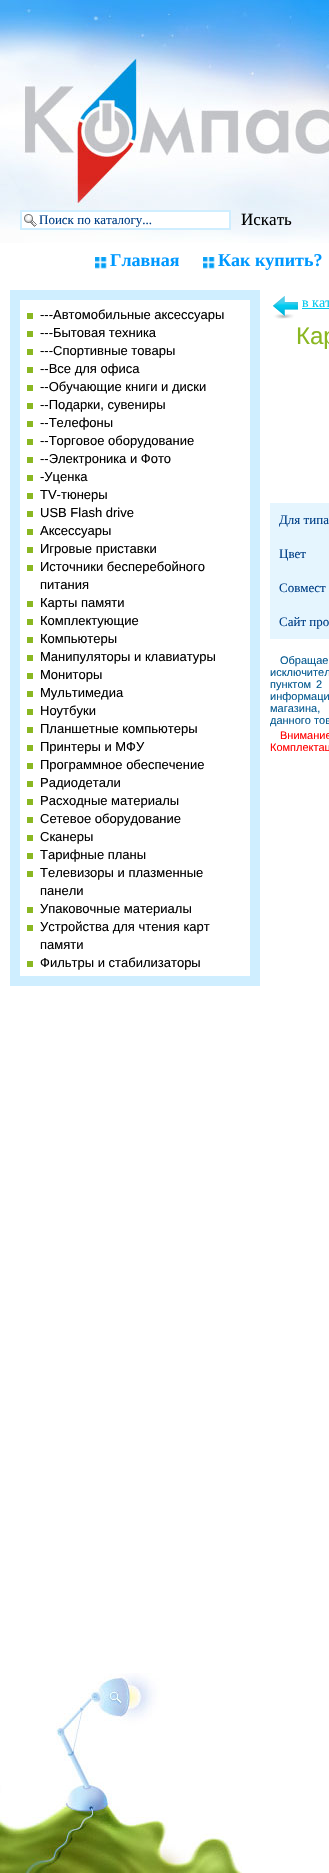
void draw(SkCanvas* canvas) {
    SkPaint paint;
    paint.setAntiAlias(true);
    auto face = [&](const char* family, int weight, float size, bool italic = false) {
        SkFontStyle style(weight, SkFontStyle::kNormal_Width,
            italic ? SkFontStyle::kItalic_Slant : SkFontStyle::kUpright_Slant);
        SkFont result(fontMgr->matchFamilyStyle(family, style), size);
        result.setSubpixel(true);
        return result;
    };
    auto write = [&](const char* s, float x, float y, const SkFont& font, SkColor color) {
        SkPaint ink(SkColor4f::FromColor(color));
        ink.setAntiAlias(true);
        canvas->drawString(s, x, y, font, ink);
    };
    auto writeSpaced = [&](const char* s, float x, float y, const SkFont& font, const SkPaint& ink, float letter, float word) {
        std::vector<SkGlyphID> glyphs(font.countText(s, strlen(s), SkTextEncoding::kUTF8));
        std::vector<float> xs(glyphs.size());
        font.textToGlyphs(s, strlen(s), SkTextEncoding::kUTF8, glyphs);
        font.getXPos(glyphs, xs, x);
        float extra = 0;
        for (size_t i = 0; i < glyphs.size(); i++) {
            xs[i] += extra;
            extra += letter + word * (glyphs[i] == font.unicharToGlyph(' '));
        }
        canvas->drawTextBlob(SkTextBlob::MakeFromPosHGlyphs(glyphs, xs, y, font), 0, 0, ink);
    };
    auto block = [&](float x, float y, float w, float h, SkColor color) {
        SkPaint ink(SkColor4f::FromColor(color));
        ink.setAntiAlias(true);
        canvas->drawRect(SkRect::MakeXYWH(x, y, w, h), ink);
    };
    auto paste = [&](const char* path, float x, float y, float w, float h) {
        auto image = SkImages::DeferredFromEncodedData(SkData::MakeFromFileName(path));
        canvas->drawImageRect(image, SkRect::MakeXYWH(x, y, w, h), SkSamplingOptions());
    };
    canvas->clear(SK_ColorWHITE);
    paste("pic1.png", 0, 1673, 242, 200);
    paste("pic2.png", 0, 0, 329, 243);
    block(22, 212, 207, 16, SK_ColorWHITE);
    paste("pic3.png", 24, 214, 13, 13);
    paint.setStyle(SkPaint::kStroke_Style);
    paint.setStrokeWidth(2);
    paint.setColor(SkColorSetRGB(207, 238, 255));
    canvas->drawRect(SkRect::MakeXYWH(21, 211, 209, 18), paint);
    auto kFont1 = face("Liberation Serif", 400, 13);
    write("Поиск по каталогу...", 39, 224, kFont1, SkColorSetRGB(0, 63, 134));
    auto kFont2 = face("Liberation Serif", 400, 17);
    write("Искать", 241, 225, kFont2, SK_ColorBLACK);
    paste("pic4.png", 95, 257, 12, 12);
    auto kFont3 = face("Liberation Serif", 700, 18);
    write("Главная", 110, 266, kFont3, SkColorSetRGB(0, 153, 255));
    paste("pic4.png", 203, 257, 12, 12);
    write("Как купить?", 218, 266, kFont3, SkColorSetRGB(0, 153, 255));
    paint.setStrokeWidth(10);
    canvas->drawRect(SkRect::MakeXYWH(15, 295, 240, 686), paint);
    block(27, 313, 6, 6, SkColorSetRGB(138, 183, 33));
    auto kFont4 = face("Liberation Sans", 400, 13);
    write("---Автомобильные аксессуары", 40, 319, kFont4, SK_ColorBLACK);
    block(27, 331, 6, 6, SkColorSetRGB(138, 183, 33));
    write("---Бытовая техника", 40, 337, kFont4, SK_ColorBLACK);
    block(27, 349, 6, 6, SkColorSetRGB(138, 183, 33));
    write("---Спортивные товары", 40, 355, kFont4, SK_ColorBLACK);
    block(27, 367, 6, 6, SkColorSetRGB(138, 183, 33));
    write("--Все для офиса", 40, 373, kFont4, SK_ColorBLACK);
    block(27, 385, 6, 6, SkColorSetRGB(138, 183, 33));
    write("--Обучающие книги и диски", 40, 391, kFont4, SK_ColorBLACK);
    block(27, 403, 6, 6, SkColorSetRGB(138, 183, 33));
    write("--Подарки, сувениры", 40, 409, kFont4, SK_ColorBLACK);
    block(27, 421, 6, 6, SkColorSetRGB(138, 183, 33));
    write("--Телефоны", 40, 427, kFont4, SK_ColorBLACK);
    block(27, 439, 6, 6, SkColorSetRGB(138, 183, 33));
    write("--Торговое оборудование", 40, 445, kFont4, SK_ColorBLACK);
    block(27, 457, 6, 6, SkColorSetRGB(138, 183, 33));
    write("--Электроника и Фото", 40, 463, kFont4, SK_ColorBLACK);
    block(27, 475, 6, 6, SkColorSetRGB(138, 183, 33));
    write("-Уценка", 40, 481, kFont4, SK_ColorBLACK);
    block(27, 493, 6, 6, SkColorSetRGB(138, 183, 33));
    write("TV-тюнеры", 40, 499, kFont4, SK_ColorBLACK);
    block(27, 511, 6, 6, SkColorSetRGB(138, 183, 33));
    write("USB Flash drive", 40, 517, kFont4, SK_ColorBLACK);
    block(27, 529, 6, 6, SkColorSetRGB(138, 183, 33));
    write("Аксессуары", 40, 535, kFont4, SK_ColorBLACK);
    block(27, 547, 6, 6, SkColorSetRGB(138, 183, 33));
    write("Игровые приставки", 40, 553, kFont4, SK_ColorBLACK);
    block(27, 565, 6, 6, SkColorSetRGB(138, 183, 33));
    write("Источники бесперебойного", 40, 571, kFont4, SK_ColorBLACK);
    write("питания", 40, 589, kFont4, SK_ColorBLACK);
    block(27, 601, 6, 6, SkColorSetRGB(138, 183, 33));
    write("Карты памяти", 40, 607, kFont4, SK_ColorBLACK);
    block(27, 619, 6, 6, SkColorSetRGB(138, 183, 33));
    write("Комплектующие", 40, 625, kFont4, SK_ColorBLACK);
    block(27, 637, 6, 6, SkColorSetRGB(138, 183, 33));
    write("Компьютеры", 40, 643, kFont4, SK_ColorBLACK);
    block(27, 655, 6, 6, SkColorSetRGB(138, 183, 33));
    write("Манипуляторы и клавиатуры", 40, 661, kFont4, SK_ColorBLACK);
    block(27, 673, 6, 6, SkColorSetRGB(138, 183, 33));
    write("Мониторы", 40, 679, kFont4, SK_ColorBLACK);
    block(27, 691, 6, 6, SkColorSetRGB(138, 183, 33));
    write("Мультимедиа", 40, 697, kFont4, SK_ColorBLACK);
    block(27, 709, 6, 6, SkColorSetRGB(138, 183, 33));
    write("Ноутбуки", 40, 715, kFont4, SK_ColorBLACK);
    block(27, 727, 6, 6, SkColorSetRGB(138, 183, 33));
    write("Планшетные компьютеры", 40, 733, kFont4, SK_ColorBLACK);
    block(27, 745, 6, 6, SkColorSetRGB(138, 183, 33));
    write("Принтеры и МФУ", 40, 751, kFont4, SK_ColorBLACK);
    block(27, 763, 6, 6, SkColorSetRGB(138, 183, 33));
    write("Программное обеспечение", 40, 769, kFont4, SK_ColorBLACK);
    block(27, 781, 6, 6, SkColorSetRGB(138, 183, 33));
    write("Радиодетали", 40, 787, kFont4, SK_ColorBLACK);
    block(27, 799, 6, 6, SkColorSetRGB(138, 183, 33));
    write("Расходные материалы", 40, 805, kFont4, SK_ColorBLACK);
    block(27, 817, 6, 6, SkColorSetRGB(138, 183, 33));
    write("Сетевое оборудование", 40, 823, kFont4, SK_ColorBLACK);
    block(27, 835, 6, 6, SkColorSetRGB(138, 183, 33));
    write("Сканеры", 40, 841, kFont4, SK_ColorBLACK);
    block(27, 853, 6, 6, SkColorSetRGB(138, 183, 33));
    write("Тарифные планы", 40, 859, kFont4, SK_ColorBLACK);
    block(27, 871, 6, 6, SkColorSetRGB(138, 183, 33));
    write("Телевизоры и плазменные", 40, 877, kFont4, SK_ColorBLACK);
    write("панели", 40, 895, kFont4, SK_ColorBLACK);
    block(27, 907, 6, 6, SkColorSetRGB(138, 183, 33));
    write("Упаковочные материалы", 40, 913, kFont4, SK_ColorBLACK);
    block(27, 925, 6, 6, SkColorSetRGB(138, 183, 33));
    write("Устройства для чтения карт", 40, 931, kFont4, SK_ColorBLACK);
    write("памяти", 40, 949, kFont4, SK_ColorBLACK);
    block(27, 961, 6, 6, SkColorSetRGB(138, 183, 33));
    write("Фильтры и стабилизаторы", 40, 967, kFont4, SK_ColorBLACK);
    paste("pic5.png", 272, 296, 26, 23);
    auto kFont5 = face("Liberation Serif", 400, 14);
    write("в кат", 302, 307, kFont5, SkColorSetRGB(0, 200, 237));
    block(302, 308, 27, 1, SkColorSetRGB(0, 200, 237));
    auto kFont6 = face("Liberation Sans", 400, 24);
    write("Кар", 296, 344, kFont6, SkColorSetRGB(138, 183, 33));
    block(270, 503, 59, 136, SkColorSetRGB(229, 245, 254));
    write("Для типа", 279, 524, kFont1, SkColorSetRGB(0, 63, 134));
    write("Цвет", 279, 558, kFont1, SkColorSetRGB(0, 63, 134));
    write("Совмест", 279, 592, kFont1, SkColorSetRGB(0, 63, 134));
    write("Сайт про", 279, 626, kFont1, SkColorSetRGB(0, 63, 134));
    auto kFont7 = face("Liberation Sans", 400, 11);
    paint.setStyle(SkPaint::kFill_Style);
    paint.setColor(SkColorSetRGB(7, 91, 145));
    writeSpaced("Обращае", 280, 664, kFont7, paint, 0, 3);
    writeSpaced("исключител", 270, 676, kFont7, paint, 0, 3);
    writeSpaced("пунктом 2", 270, 688, kFont7, paint, 0, 2);
    writeSpaced("информаци", 270, 700, kFont7, paint, 0, 1);
    writeSpaced("магазина,", 270, 712, kFont7, paint, 0, 3);
    write("данного тов", 270, 724, kFont7, SkColorSetRGB(7, 91, 145));
    paint.setColor(SkColorSetRGB(255, 2, 2));
    writeSpaced("Внимание", 280, 739, kFont7, paint, 0, 1);
    write("Комплектац", 270, 751, kFont7, SkColorSetRGB(255, 2, 2));
}
